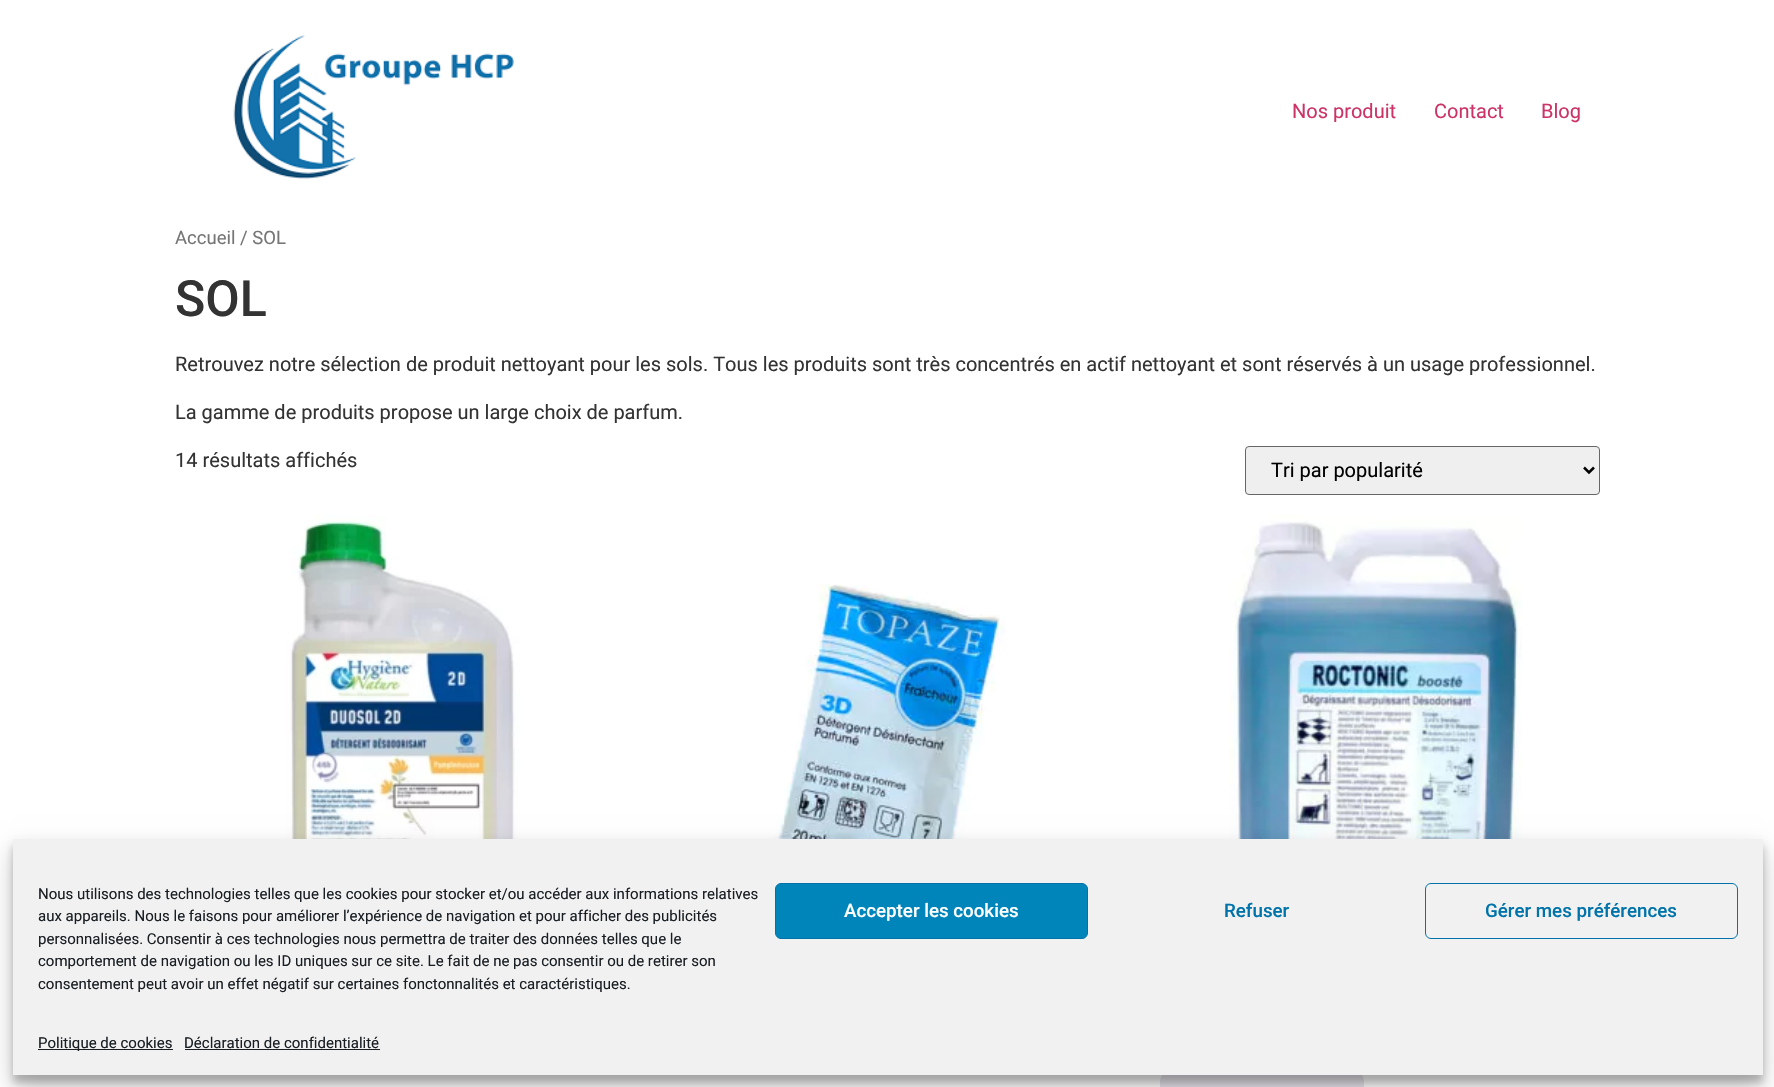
void draw(SkCanvas* canvas) {
    SkPaint paint;
    paint.setAntiAlias(true);
    auto face = [&](const char* family, int weight, float size, bool italic = false) {
        SkFontStyle style(weight, SkFontStyle::kNormal_Width,
            italic ? SkFontStyle::kItalic_Slant : SkFontStyle::kUpright_Slant);
        SkFont result(fontMgr->matchFamilyStyle(family, style), size);
        result.setSubpixel(true);
        return result;
    };
    auto write = [&](const char* s, float x, float y, const SkFont& font, SkColor color) {
        SkPaint ink(SkColor4f::FromColor(color));
        ink.setAntiAlias(true);
        canvas->drawString(s, x, y, font, ink);
    };
    auto block = [&](float x, float y, float w, float h, SkColor color) {
        SkPaint ink(SkColor4f::FromColor(color));
        ink.setAntiAlias(true);
        canvas->drawRect(SkRect::MakeXYWH(x, y, w, h), ink);
    };
    auto card = [&](float x, float y, float w, float h, float radius, SkColor color) {
        SkPaint ink(SkColor4f::FromColor(color));
        ink.setAntiAlias(true);
        canvas->drawRoundRect(SkRect::MakeXYWH(x, y, w, h), radius, radius, ink);
    };
    auto paste = [&](const char* path, float x, float y, float w, float h) {
        auto image = SkImages::DeferredFromEncodedData(SkData::MakeFromFileName(path));
        canvas->drawImageRect(image, SkRect::MakeXYWH(x, y, w, h), SkSamplingOptions());
    };
    canvas->clear(SK_ColorWHITE);
    paste("pic1.png", 233, 35, 281, 144);
    auto kFont1 = face("Roboto", 400, 20);
    write("Nos produit", 1292, 118, kFont1, SkColorSetRGB(204, 51, 102));
    write("Contact", 1434, 118, kFont1, SkColorSetRGB(204, 51, 102));
    write("Blog", 1541, 118, kFont1, SkColorSetRGB(204, 51, 102));
    auto kFont2 = face("Roboto", 400, 18.5f);
    write("Accueil / SOL", 175, 244, kFont2, SkColorSetRGB(118, 118, 118));
    auto kFont3 = face("Roboto", 500, 50);
    write("SOL", 175, 316, kFont3, SkColorSetRGB(51, 51, 51));
    write("Retrouvez notre sélection de produit nettoyant pour les sols. Tous les produits sont très concentrés en actif nettoyant et sont réservés à un usage professionnel.", 175, 371, kFont1, SkColorSetRGB(51, 51, 51));
    write("La gamme de produits propose un large choix de parfum.", 175, 419, kFont1, SkColorSetRGB(51, 51, 51));
    write("14 résultats affichés", 175, 467, kFont1, SkColorSetRGB(51, 51, 51));
    paint.setColor(SkColorSetRGB(239, 239, 239));
    canvas->drawRoundRect(SkRect::MakeXYWH(1245.5f, 446.5f, 354, 48), 3.5f, 3.5f, paint);
    paint.setStyle(SkPaint::kStroke_Style);
    paint.setStrokeWidth(1);
    paint.setColor(SkColorSetRGB(102, 102, 102));
    canvas->drawRoundRect(SkRect::MakeXYWH(1245.5f, 446.5f, 354, 48), 3.5f, 3.5f, paint);
    paint.setStrokeWidth(2.5f);
    paint.setColor(SK_ColorBLACK);
    canvas->drawPath(SkPathBuilder().moveTo(1584, 467.5f).lineTo(1589, 472.5f).lineTo(1594, 467.5f).detach(), paint);
    write("Tri par popularité", 1271, 477, kFont1, SK_ColorBLACK);
    paste("pic2.png", 257, 515, 269, 324);
    paste("pic3.png", 772, 584, 234, 255);
    paste("pic4.png", 1230, 515, 292, 324);
    card(1160, 1071, 204, 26, 10, SkColorSetRGB(233, 230, 237));
    paint.setStyle(SkPaint::kFill_Style);
    paint.setColor(SkColorSetARGB(59, 0, 0, 0));
    paint.setMaskFilter(SkMaskFilter::MakeBlur(kNormal_SkBlurStyle, 4));
    canvas->drawRect(SkRect::MakeXYWH(13, 846, 1750, 237), paint);
    paint.setMaskFilter(nullptr);
    paint.setColor(SkColorSetARGB(48, 0, 0, 0));
    paint.setMaskFilter(SkMaskFilter::MakeBlur(kNormal_SkBlurStyle, 12.5f));
    canvas->drawRect(SkRect::MakeXYWH(13, 851, 1750, 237), paint);
    paint.setMaskFilter(nullptr);
    block(13, 839, 1750, 236, SkColorSetRGB(241, 241, 241));
    auto kFont4 = face("Roboto", 400, 15);
    write("Nous utilisons des technologies telles que les cookies pour stocker et/ou accéder aux informations relatives", 38, 899, kFont4, SkColorSetRGB(25, 30, 35));
    write("aux appareils. Nous le faisons pour améliorer l’expérience de navigation et pour afficher des publicités", 38, 921, kFont4, SkColorSetRGB(25, 30, 35));
    write("personnalisées. Consentir à ces technologies nous permettra de traiter des données telles que le", 38, 944, kFont4, SkColorSetRGB(25, 30, 35));
    write("comportement de navigation ou les ID uniques sur ce site. Le fait de ne pas consentir ou de retirer son", 38, 966, kFont4, SkColorSetRGB(25, 30, 35));
    write("consentement peut avoir un effet négatif sur certaines fonctonnalités et caractéristiques.", 38, 989, kFont4, SkColorSetRGB(25, 30, 35));
    paint.setColor(SkColorSetRGB(0, 133, 186));
    canvas->drawRoundRect(SkRect::MakeXYWH(775.5f, 883.5f, 312, 55), 5.5f, 5.5f, paint);
    paint.setStyle(SkPaint::kStroke_Style);
    paint.setStrokeWidth(1);
    paint.setColor(SkColorSetRGB(0, 115, 170));
    canvas->drawRoundRect(SkRect::MakeXYWH(775.5f, 883.5f, 312, 55), 5.5f, 5.5f, paint);
    auto kFont5 = face("Roboto", 500, 18.75f);
    write("Accepter les cookies", 844, 917, kFont5, SK_ColorWHITE);
    write("Refuser", 1224, 917, kFont5, SkColorSetRGB(0, 115, 170));
    canvas->drawRoundRect(SkRect::MakeXYWH(1425.5f, 883.5f, 312, 55), 5.5f, 5.5f, paint);
    write("Gérer mes préférences", 1485, 917, kFont5, SkColorSetRGB(0, 115, 170));
    block(38, 1049, 135, 1, SkColorSetRGB(25, 30, 35));
    write("Politique de cookies", 38, 1048, kFont4, SkColorSetRGB(25, 30, 35));
    write("Déclaration de confidentialité", 184, 1048, kFont4, SkColorSetRGB(25, 30, 35));
    block(185, 1049, 195, 1, SkColorSetRGB(25, 30, 35));
}
